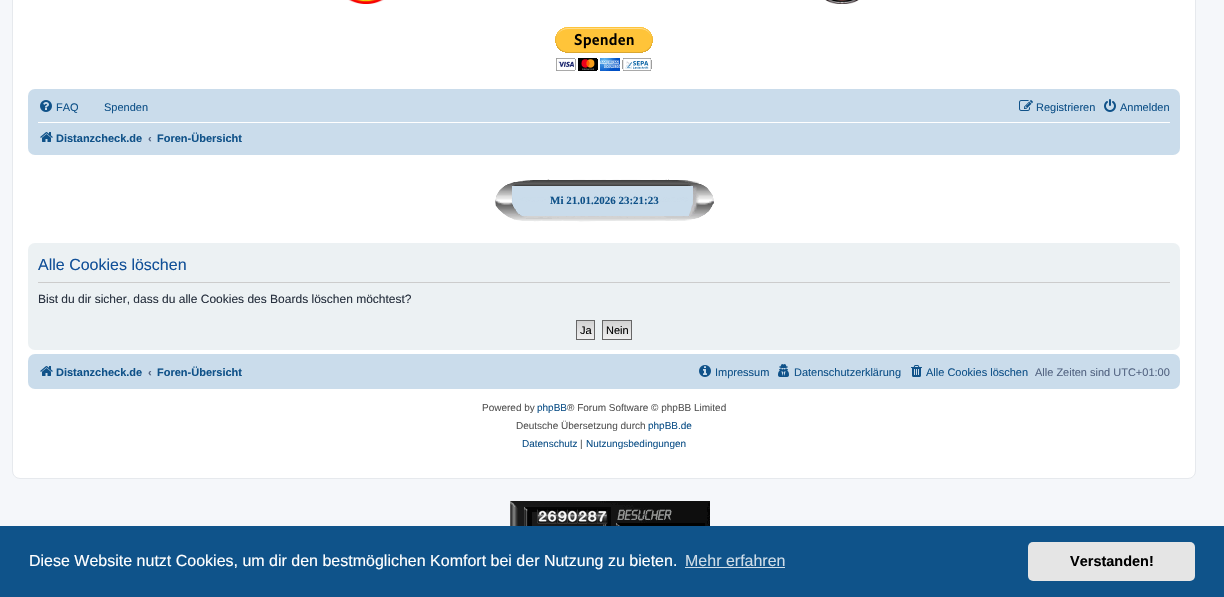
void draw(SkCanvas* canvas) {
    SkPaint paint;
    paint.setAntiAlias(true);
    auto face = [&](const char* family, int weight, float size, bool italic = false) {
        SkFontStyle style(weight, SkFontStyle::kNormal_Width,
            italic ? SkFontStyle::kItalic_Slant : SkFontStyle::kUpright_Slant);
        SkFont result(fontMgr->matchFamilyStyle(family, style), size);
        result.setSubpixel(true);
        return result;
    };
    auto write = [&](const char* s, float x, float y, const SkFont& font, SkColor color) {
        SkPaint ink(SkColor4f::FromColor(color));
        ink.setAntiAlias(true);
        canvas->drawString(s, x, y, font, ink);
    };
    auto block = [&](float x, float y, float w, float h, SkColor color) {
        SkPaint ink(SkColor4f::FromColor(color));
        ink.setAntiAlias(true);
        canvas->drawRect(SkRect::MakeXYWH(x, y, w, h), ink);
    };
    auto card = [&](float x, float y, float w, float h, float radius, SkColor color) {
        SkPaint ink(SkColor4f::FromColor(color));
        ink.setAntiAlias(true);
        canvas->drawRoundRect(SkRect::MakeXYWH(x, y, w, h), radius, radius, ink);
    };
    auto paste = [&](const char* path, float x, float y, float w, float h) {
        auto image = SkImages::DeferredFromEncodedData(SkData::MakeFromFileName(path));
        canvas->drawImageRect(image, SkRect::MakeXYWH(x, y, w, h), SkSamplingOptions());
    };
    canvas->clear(SkColorSetRGB(245, 247, 250));
    paint.setColor(SK_ColorWHITE);
    canvas->drawRoundRect(SkRect::MakeXYWH(12.5f, -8.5f, 1183, 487), 7.5f, 7.5f, paint);
    paint.setStyle(SkPaint::kStroke_Style);
    paint.setStrokeWidth(1);
    paint.setColor(SkColorSetRGB(230, 233, 237));
    canvas->drawRoundRect(SkRect::MakeXYWH(12.5f, -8.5f, 1183, 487), 7.5f, 7.5f, paint);
    paste("pic1.png", 348, 0, 36, 4);
    paste("pic2.png", 825, 0, 34, 4);
    paste("pic3.png", 555, 27, 98, 44);
    card(28, 89, 1152, 66, 7, SkColorSetRGB(202, 220, 235));
    paste("pic4.png", 40, 100, 12, 12);
    auto kFont1 = face("Liberation Sans", 400, 11);
    write("FAQ", 56, 111, kFont1, SkColorSetRGB(16, 82, 137));
    write("Spenden", 104, 111, kFont1, SkColorSetRGB(16, 82, 137));
    paste("pic5.png", 1019, 100, 14, 11);
    write("Registrieren", 1036, 111, kFont1, SkColorSetRGB(16, 82, 137));
    paste("pic6.png", 1104, 99, 12, 13);
    write("Anmelden", 1120, 111, kFont1, SkColorSetRGB(16, 82, 137));
    block(38, 122, 1132, 1, SK_ColorWHITE);
    paste("pic7.png", 40, 132, 13, 10);
    auto kFont2 = face("Liberation Sans", 700, 11);
    write("Distanzcheck.de", 56, 142, kFont2, SkColorSetRGB(16, 82, 137));
    write("‹", 148, 142, kFont2, SkColorSetRGB(83, 100, 130));
    write("Foren-Übersicht", 157, 142, kFont2, SkColorSetRGB(16, 82, 137));
    paste("pic8.png", 495, 179, 219, 43);
    auto kFont3 = face("Liberation Serif", 700, 11);
    write("Mi 21.01.2026 23:21:23", 550, 204, kFont3, SkColorSetRGB(16, 82, 137));
    card(28, 243, 1152, 107, 7, SkColorSetRGB(236, 241, 243));
    block(38, 282, 1132, 1, SkColorSetRGB(204, 204, 204));
    auto kFont4 = face("Liberation Sans", 400, 16);
    write("Alle Cookies löschen", 38, 270, kFont4, SkColorSetRGB(17, 80, 152));
    auto kFont5 = face("Liberation Sans", 400, 12);
    write("Bist du dir sicher, dass du alle Cookies des Boards löschen möchtest?", 38, 303, kFont5, SkColorSetRGB(40, 49, 63));
    paint.setStyle(SkPaint::kFill_Style);
    {
        const SkColor colors[] = {SkColorSetRGB(210, 210, 210), SkColorSetRGB(239, 239, 239)};
        const float stops[] = {0, 1};
        const SkPoint ends[] = {{586, 321}, {586, 339}};
        paint.setShader(SkGradientShader::MakeLinear(ends, colors, stops, 2, SkTileMode::kClamp));
        paint.setAlpha(255);
    }
    canvas->drawRect(SkRect::MakeXYWH(577, 321, 17, 18), paint);
    paint.setStyle(SkPaint::kStroke_Style);
    paint.setShader(nullptr);
    paint.setColor(SkColorSetRGB(102, 102, 102));
    canvas->drawRect(SkRect::MakeXYWH(576.5f, 320.5f, 18, 19), paint);
    write("Ja", 580, 334, kFont1, SK_ColorBLACK);
    paint.setStyle(SkPaint::kFill_Style);
    {
        const SkColor colors[] = {SkColorSetRGB(210, 210, 210), SkColorSetRGB(239, 239, 239)};
        const float stops[] = {0, 1};
        const SkPoint ends[] = {{617, 321}, {617, 339}};
        paint.setShader(SkGradientShader::MakeLinear(ends, colors, stops, 2, SkTileMode::kClamp));
        paint.setAlpha(255);
    }
    canvas->drawRect(SkRect::MakeXYWH(603, 321, 28, 18), paint);
    paint.setStyle(SkPaint::kStroke_Style);
    paint.setShader(nullptr);
    paint.setColor(SkColorSetRGB(102, 102, 102));
    canvas->drawRect(SkRect::MakeXYWH(602.5f, 320.5f, 29, 19), paint);
    write("Nein", 606, 334, kFont1, SK_ColorBLACK);
    card(28, 354, 1152, 35, 7, SkColorSetRGB(202, 220, 235));
    paste("pic7.png", 40, 366, 13, 10);
    write("Distanzcheck.de", 56, 376, kFont2, SkColorSetRGB(16, 82, 137));
    write("‹", 148, 376, kFont2, SkColorSetRGB(83, 100, 130));
    write("Foren-Übersicht", 157, 376, kFont2, SkColorSetRGB(16, 82, 137));
    paste("pic9.png", 699, 365, 12, 12);
    write("Impressum", 715, 376, kFont1, SkColorSetRGB(16, 82, 137));
    paste("pic10.png", 778, 364, 11, 13);
    write("Datenschutzerklärung", 794, 376, kFont1, SkColorSetRGB(16, 82, 137));
    paste("pic11.png", 911, 365, 11, 12);
    write("Alle Cookies löschen", 926, 376, kFont1, SkColorSetRGB(16, 82, 137));
    write("Alle Zeiten sind UTC+01:00", 1035, 376, kFont1, SkColorSetRGB(83, 100, 130));
    auto kFont6 = face("Liberation Sans", 400, 10);
    write("Powered by", 482, 411, kFont6, SkColorSetRGB(85, 85, 85));
    write("phpBB", 537, 411, kFont6, SkColorSetRGB(16, 82, 137));
    write("® Forum Software © phpBB Limited", 567, 411, kFont6, SkColorSetRGB(85, 85, 85));
    write("Deutsche Übersetzung durch", 516, 429, kFont6, SkColorSetRGB(85, 85, 85));
    write("phpBB.de", 648, 429, kFont6, SkColorSetRGB(16, 82, 137));
    write("Datenschutz", 522, 447, kFont6, SkColorSetRGB(16, 82, 137));
    write("|", 580, 447, kFont6, SkColorSetRGB(85, 85, 85));
    write("Nutzungsbedingungen", 586, 447, kFont6, SkColorSetRGB(16, 82, 137));
    paste("pic12.png", 510, 501, 200, 25);
    block(0, 526, 1224, 71, SkColorSetRGB(15, 83, 138));
    write("Diese Website nutzt Cookies, um dir den bestmöglichen Komfort bei der Nutzung zu bieten.", 29, 566, kFont4, SK_ColorWHITE);
    write("Mehr erfahren", 685, 566, kFont4, SkColorSetRGB(207, 221, 232));
    block(685, 567, 100, 1, SkColorSetRGB(207, 221, 232));
    card(1028, 542, 167, 39, 5, SkColorSetRGB(229, 229, 229));
    auto kFont7 = face("Liberation Sans", 700, 14.5f);
    write("Verstanden!", 1070, 566, kFont7, SK_ColorBLACK);
}
